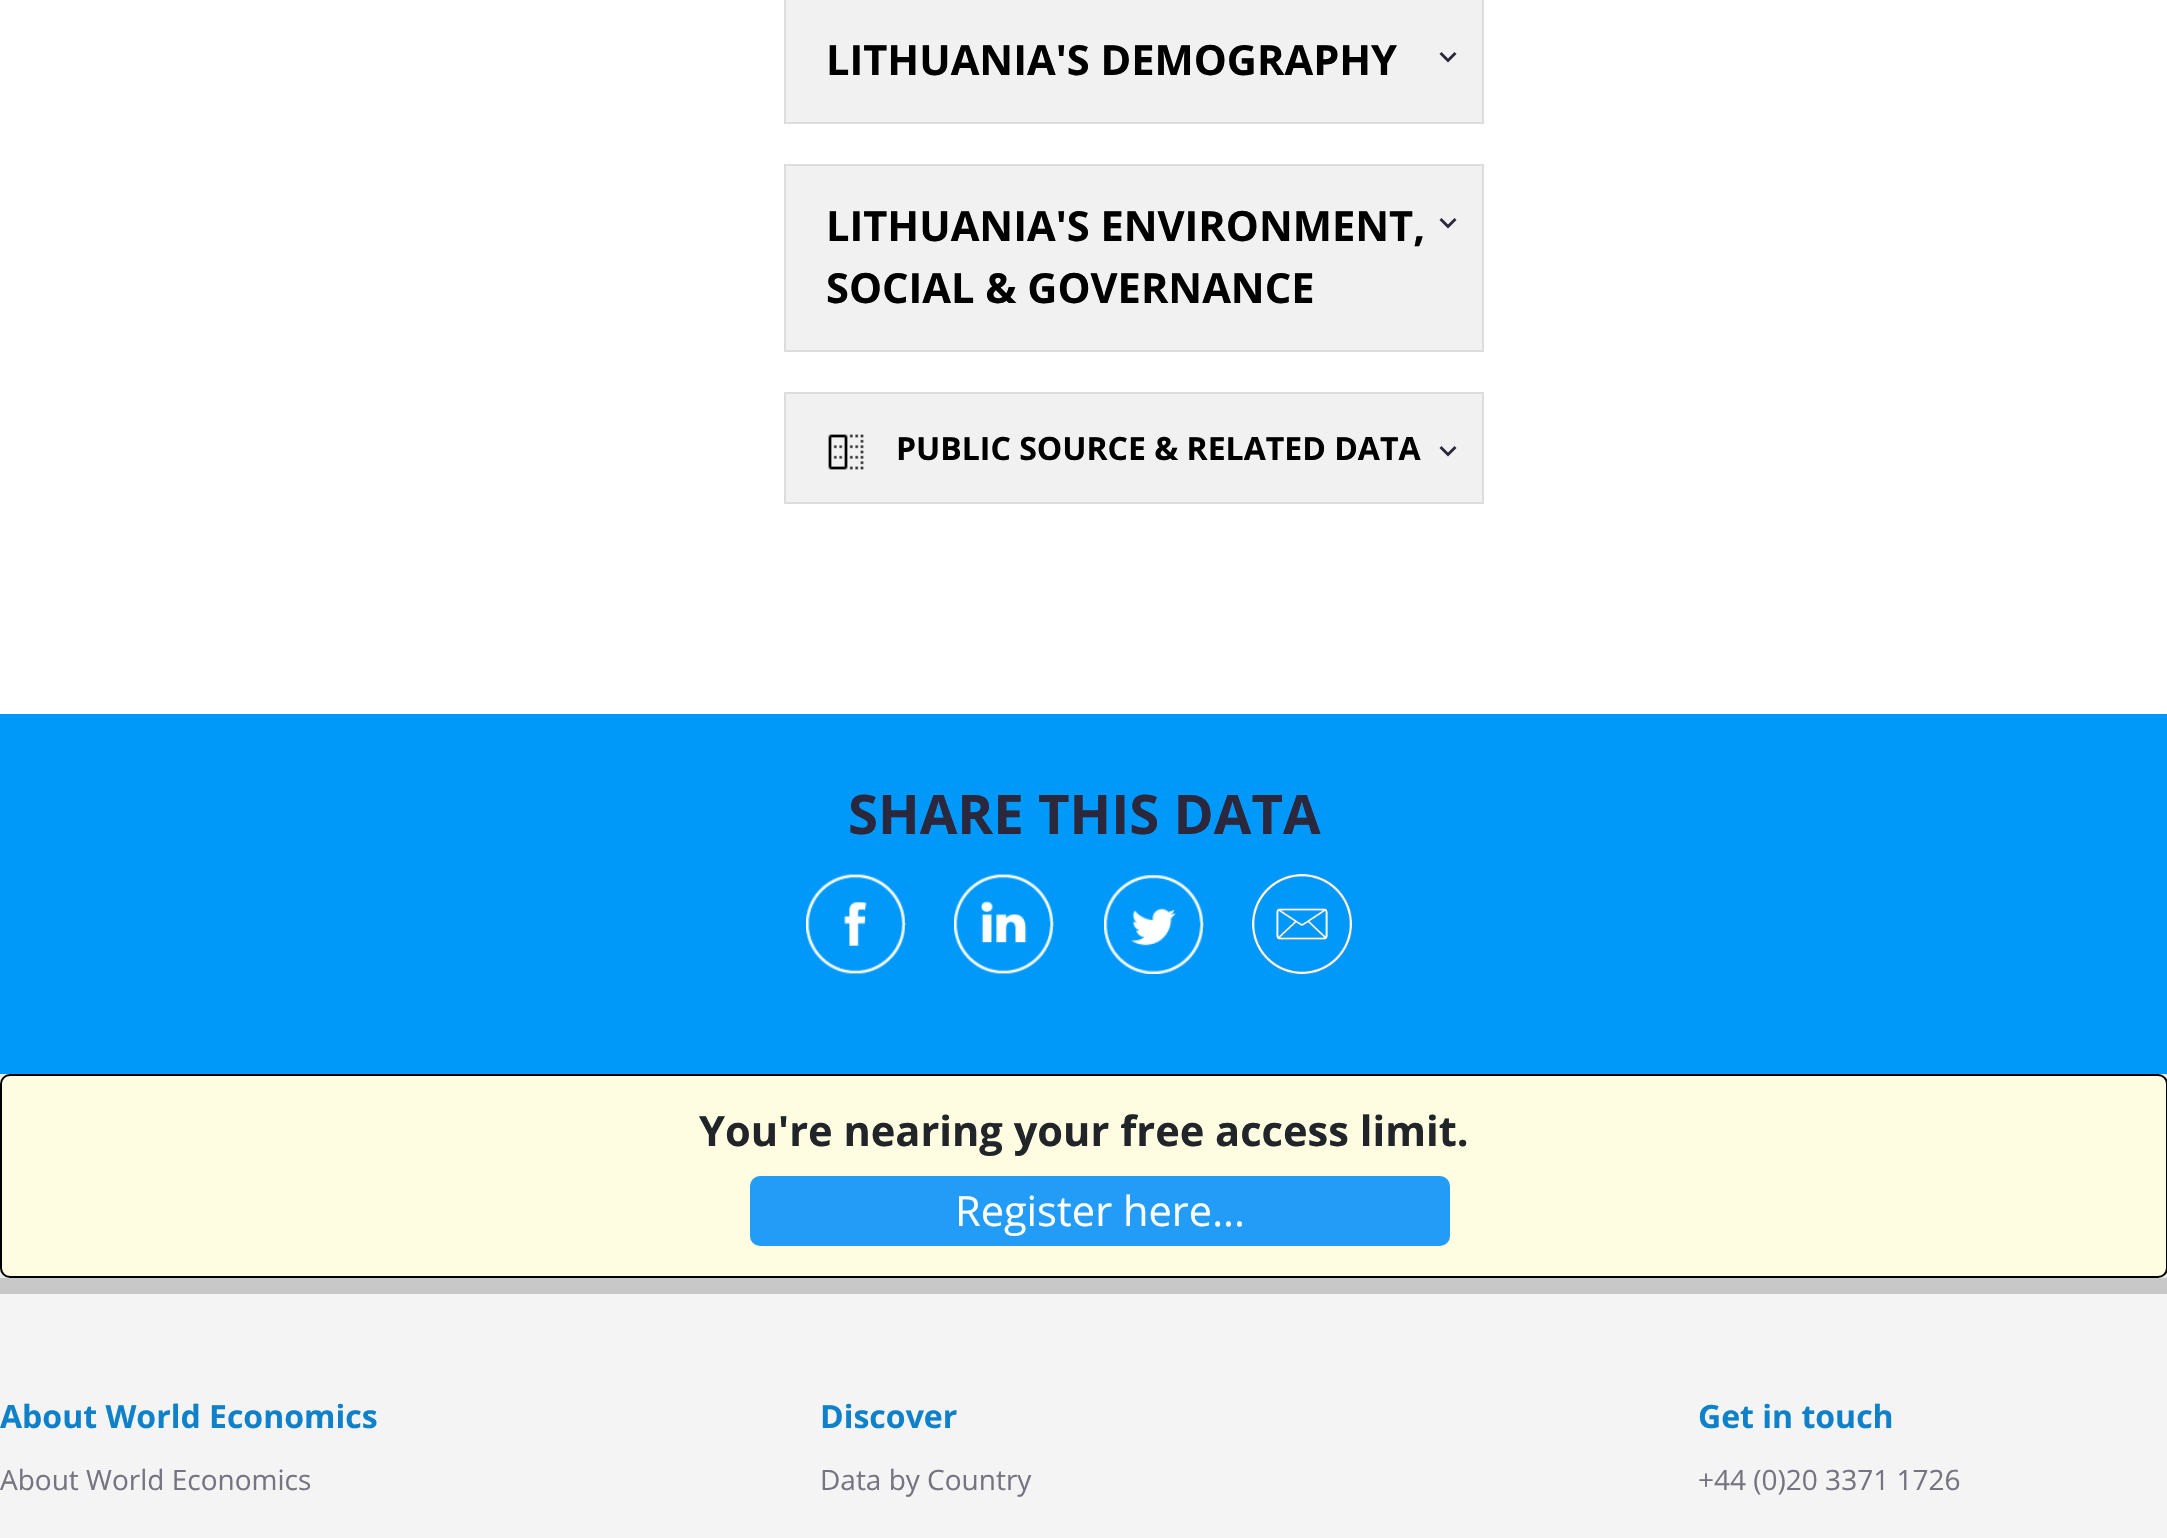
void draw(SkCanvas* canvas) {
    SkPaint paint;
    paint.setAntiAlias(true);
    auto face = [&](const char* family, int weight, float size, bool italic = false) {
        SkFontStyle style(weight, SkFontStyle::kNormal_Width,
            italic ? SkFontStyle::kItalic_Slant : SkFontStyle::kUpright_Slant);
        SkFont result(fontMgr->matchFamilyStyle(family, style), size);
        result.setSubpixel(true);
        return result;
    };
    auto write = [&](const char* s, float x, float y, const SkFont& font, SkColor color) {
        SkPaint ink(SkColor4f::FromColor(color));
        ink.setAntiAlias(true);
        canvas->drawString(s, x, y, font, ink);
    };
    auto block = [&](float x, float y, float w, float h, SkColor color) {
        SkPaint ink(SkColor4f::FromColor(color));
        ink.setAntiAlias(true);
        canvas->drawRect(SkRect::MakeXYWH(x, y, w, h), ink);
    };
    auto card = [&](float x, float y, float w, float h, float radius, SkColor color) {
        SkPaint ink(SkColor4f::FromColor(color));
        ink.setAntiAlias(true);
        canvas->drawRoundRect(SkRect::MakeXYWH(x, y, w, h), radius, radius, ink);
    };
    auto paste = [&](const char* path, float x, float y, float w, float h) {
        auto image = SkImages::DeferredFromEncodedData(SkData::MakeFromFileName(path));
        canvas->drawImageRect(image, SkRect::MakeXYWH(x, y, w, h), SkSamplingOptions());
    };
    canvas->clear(SK_ColorWHITE);
    canvas->save();
    canvas->clipRect(SkRect::MakeXYWH(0, 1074, 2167, 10));
    paint.setColor(SkColorSetARGB(77, 0, 0, 0));
    paint.setMaskFilter(SkMaskFilter::MakeBlur(kNormal_SkBlurStyle, 80));
    canvas->drawRect(SkRect::MakeXYWH(0, -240, 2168, 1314), paint);
    paint.setMaskFilter(nullptr);
    canvas->restore();
    paint.setColor(SkColorSetRGB(241, 241, 241));
    canvas->drawRect(SkRect::MakeXYWH(785, -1, 698, 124), paint);
    paint.setStyle(SkPaint::kStroke_Style);
    paint.setStrokeWidth(2);
    paint.setColor(SkColorSetRGB(221, 221, 221));
    canvas->drawRect(SkRect::MakeXYWH(785, -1, 698, 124), paint);
    auto kFont1 = face("Open Sans", 700, 41.6f);
    write("LITHUANIA'S DEMOGRAPHY", 826, 75, kFont1, SK_ColorBLACK);
    paint.setStyle(SkPaint::kFill_Style);
    paint.setColor(SkColorSetRGB(43, 39, 60));
    canvas->drawPath(SkPathBuilder().moveTo(1454.5f, 52).lineTo(1448, 58.5f).lineTo(1441.5f, 52).lineTo(1439.5f, 54).lineTo(1448, 62.5f).lineTo(1456.5f, 54).close().detach(), paint);
    paint.setColor(SkColorSetRGB(241, 241, 241));
    canvas->drawRect(SkRect::MakeXYWH(785, 165, 698, 186), paint);
    paint.setStyle(SkPaint::kStroke_Style);
    paint.setColor(SkColorSetRGB(221, 221, 221));
    canvas->drawRect(SkRect::MakeXYWH(785, 165, 698, 186), paint);
    write("LITHUANIA'S ENVIRONMENT,", 826, 241, kFont1, SK_ColorBLACK);
    paint.setStyle(SkPaint::kFill_Style);
    paint.setColor(SkColorSetRGB(43, 39, 60));
    canvas->drawPath(SkPathBuilder().moveTo(1454.5f, 218).lineTo(1448, 224.5f).lineTo(1441.5f, 218).lineTo(1439.5f, 220).lineTo(1448, 228.5f).lineTo(1456.5f, 220).close().detach(), paint);
    write("SOCIAL & GOVERNANCE", 826, 303, kFont1, SK_ColorBLACK);
    paint.setColor(SkColorSetRGB(241, 241, 241));
    canvas->drawRect(SkRect::MakeXYWH(785, 393, 698, 110), paint);
    paint.setStyle(SkPaint::kStroke_Style);
    paint.setColor(SkColorSetRGB(221, 221, 221));
    canvas->drawRect(SkRect::MakeXYWH(785, 393, 698, 110), paint);
    paste("pic1.png", 828, 434, 36, 36);
    auto kFont2 = face("Open Sans", 700, 32);
    write("PUBLIC SOURCE & RELATED DATA", 896, 460, kFont2, SK_ColorBLACK);
    paint.setStyle(SkPaint::kFill_Style);
    paint.setColor(SkColorSetRGB(43, 39, 60));
    canvas->drawPath(SkPathBuilder().moveTo(1454.5f, 446).lineTo(1448, 452.5f).lineTo(1441.5f, 446).lineTo(1439.5f, 448).lineTo(1448, 456.5f).lineTo(1456.5f, 448).close().detach(), paint);
    block(0, 714, 2167, 360, SkColorSetRGB(0, 153, 250));
    auto kFont3 = face("Open Sans", 700, 54.5f);
    write("SHARE THIS DATA", 848, 834, kFont3, SkColorSetRGB(43, 39, 60));
    paste("pic2.png", 806, 874, 100, 100);
    paste("pic3.png", 954, 874, 100, 100);
    paste("pic4.png", 1104, 874, 100, 100);
    paste("pic5.png", 1252, 874, 100, 100);
    paint.setColor(SkColorSetARGB(77, 0, 0, 0));
    paint.setMaskFilter(SkMaskFilter::MakeBlur(kNormal_SkBlurStyle, 80));
    canvas->drawRect(SkRect::MakeXYWH(0, 1278, 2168, 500), paint);
    paint.setMaskFilter(nullptr);
    paint.setColor(SkColorSetRGB(255, 253, 225));
    canvas->drawRoundRect(SkRect::MakeXYWH(1, 1075, 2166, 202), 9, 9, paint);
    paint.setStyle(SkPaint::kStroke_Style);
    paint.setColor(SK_ColorBLACK);
    canvas->drawRoundRect(SkRect::MakeXYWH(1, 1075, 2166, 202), 9, 9, paint);
    write("You're nearing your free access limit.", 699, 1146, kFont1, SkColorSetRGB(33, 37, 41));
    card(750, 1176, 700, 70, 10, SkColorSetRGB(34, 156, 247));
    auto kFont4 = face("Open Sans", 400, 41.6f);
    write("Register here...", 955, 1226, kFont4, SK_ColorWHITE);
    block(0, 1278, 2167, 16, SkColorSetRGB(200, 200, 200));
    block(0, 1294, 2167, 244, SkColorSetRGB(244, 244, 244));
    write("About World Economics", 0, 1428, kFont2, SkColorSetRGB(14, 129, 202));
    auto kFont5 = face("Open Sans", 400, 28);
    write("About World Economics", 0, 1490, kFont5, SkColorSetRGB(117, 116, 129));
    write("Discover", 820, 1428, kFont2, SkColorSetRGB(14, 129, 202));
    write("Data by Country", 820, 1490, kFont5, SkColorSetRGB(117, 116, 129));
    write("Get in touch", 1698, 1428, kFont2, SkColorSetRGB(14, 129, 202));
    write("+44 (0)20 3371 1726", 1698, 1490, kFont5, SkColorSetRGB(117, 116, 129));
}
